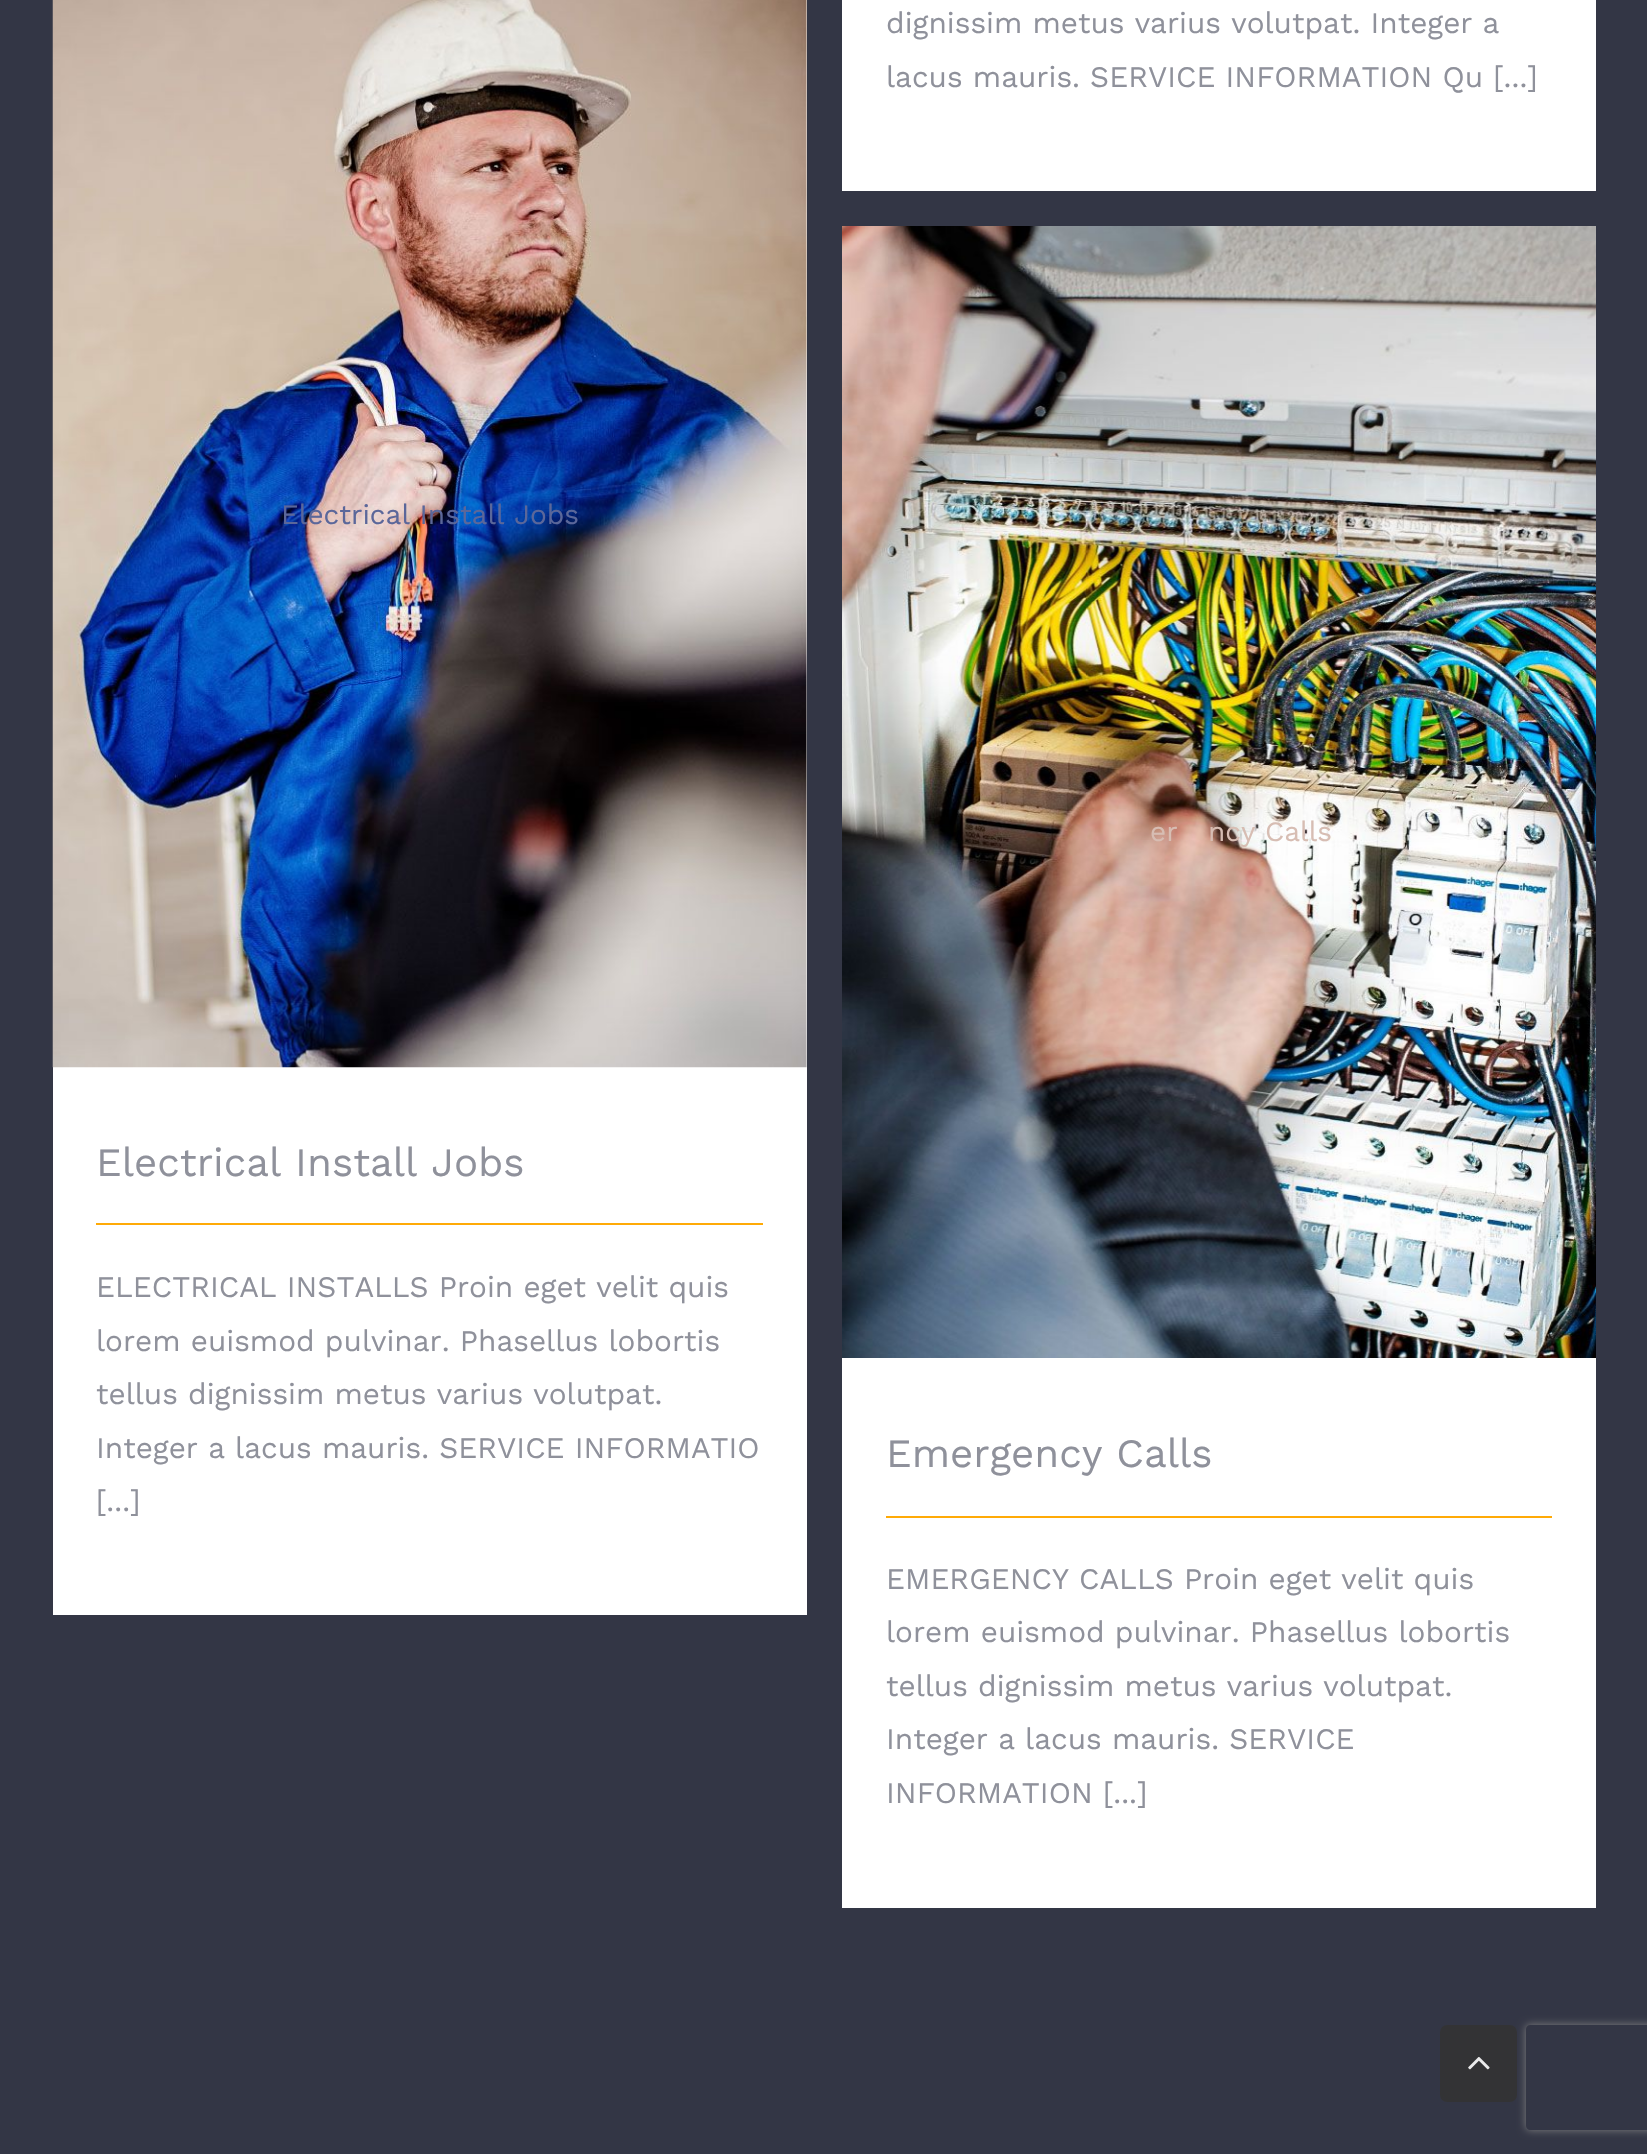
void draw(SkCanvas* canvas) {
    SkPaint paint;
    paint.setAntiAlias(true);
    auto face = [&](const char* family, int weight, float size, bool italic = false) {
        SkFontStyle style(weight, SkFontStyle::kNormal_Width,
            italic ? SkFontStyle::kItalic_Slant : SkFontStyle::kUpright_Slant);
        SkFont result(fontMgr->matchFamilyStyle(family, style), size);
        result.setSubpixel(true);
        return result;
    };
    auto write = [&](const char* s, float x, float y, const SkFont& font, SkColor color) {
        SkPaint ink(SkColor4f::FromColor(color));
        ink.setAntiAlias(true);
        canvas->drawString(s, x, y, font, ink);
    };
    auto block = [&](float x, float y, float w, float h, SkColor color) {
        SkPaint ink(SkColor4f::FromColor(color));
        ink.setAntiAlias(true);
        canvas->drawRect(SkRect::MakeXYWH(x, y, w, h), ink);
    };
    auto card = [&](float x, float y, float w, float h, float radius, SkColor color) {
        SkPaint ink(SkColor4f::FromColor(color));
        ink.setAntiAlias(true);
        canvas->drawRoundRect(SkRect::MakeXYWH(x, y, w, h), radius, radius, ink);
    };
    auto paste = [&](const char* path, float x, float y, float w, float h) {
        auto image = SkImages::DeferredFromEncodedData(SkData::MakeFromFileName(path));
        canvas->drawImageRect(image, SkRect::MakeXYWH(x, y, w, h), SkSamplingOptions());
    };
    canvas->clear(SkColorSetRGB(51, 54, 69));
    block(842, 0, 754, 191, SK_ColorWHITE);
    auto kFont1 = face("Work Sans", 400, 29.75f);
    write("dignissim metus varius volutpat. Integer a", 886, 33, kFont1, SkColorSetRGB(143, 145, 155));
    write("lacus mauris. SERVICE INFORMATION Qu [...]", 886, 87, kFont1, SkColorSetRGB(143, 145, 155));
    block(53, 0, 754, 1615, SK_ColorWHITE);
    paste("pic1.png", 52, 0, 755, 1068);
    auto kFont2 = face("Work Sans", 400, 28);
    write("Electrical Install Jobs", 281, 524, kFont2, SkColorSetRGB(91, 103, 154));
    auto kFont3 = face("Work Sans", 400, 40.25f);
    write("Electrical Install Jobs", 96, 1176, kFont3, SkColorSetRGB(143, 145, 155));
    block(96, 1223, 667, 2, SkColorSetRGB(255, 170, 6));
    write("ELECTRICAL INSTALLS Proin eget velit quis", 96, 1297, kFont1, SkColorSetRGB(143, 145, 155));
    write("lorem euismod pulvinar. Phasellus lobortis", 96, 1351, kFont1, SkColorSetRGB(143, 145, 155));
    write("tellus dignissim metus varius volutpat.", 96, 1404, kFont1, SkColorSetRGB(143, 145, 155));
    write("Integer a lacus mauris. SERVICE INFORMATIO", 96, 1458, kFont1, SkColorSetRGB(143, 145, 155));
    write("[...]", 96, 1511, kFont1, SkColorSetRGB(143, 145, 155));
    block(842, 1358, 754, 550, SK_ColorWHITE);
    paste("pic2.png", 842, 226, 754, 1132);
    write("er", 1150, 841, kFont2, SkColorSetRGB(215, 189, 179));
    write("ncy Calls", 1208, 841, kFont2, SkColorSetRGB(215, 189, 179));
    write("Emergency Calls", 886, 1467, kFont3, SkColorSetRGB(143, 145, 155));
    block(886, 1516, 666, 2, SkColorSetRGB(255, 170, 6));
    write("EMERGENCY CALLS Proin eget velit quis", 886, 1589, kFont1, SkColorSetRGB(143, 145, 155));
    write("lorem euismod pulvinar. Phasellus lobortis", 886, 1642, kFont1, SkColorSetRGB(143, 145, 155));
    write("tellus dignissim metus varius volutpat.", 886, 1696, kFont1, SkColorSetRGB(143, 145, 155));
    write("Integer a lacus mauris. SERVICE", 886, 1749, kFont1, SkColorSetRGB(143, 145, 155));
    write("INFORMATION [...]", 886, 1803, kFont1, SkColorSetRGB(143, 145, 155));
    canvas->save();
    canvas->clipPath(SkPathBuilder(SkPathFillType::kEvenOdd).moveTo(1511, 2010).lineTo(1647, 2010).lineTo(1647, 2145).lineTo(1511, 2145).close().moveTo(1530, 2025).lineTo(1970, 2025).cubicTo(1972, 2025, 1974, 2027, 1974, 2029).lineTo(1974, 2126).cubicTo(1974, 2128, 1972, 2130, 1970, 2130).lineTo(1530, 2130).cubicTo(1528, 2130, 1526, 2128, 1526, 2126).lineTo(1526, 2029).cubicTo(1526, 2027, 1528, 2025, 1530, 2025).close().detach(), true);
    paint.setColor(SkColorSetRGB(128, 128, 128));
    paint.setMaskFilter(SkMaskFilter::MakeBlur(kNormal_SkBlurStyle, 4.5f));
    canvas->drawRoundRect(SkRect::MakeXYWH(1526, 2025, 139, 105), 4, 4, paint);
    paint.setMaskFilter(nullptr);
    canvas->restore();
    card(1440, 2025, 77, 77, 7, SkColorSetRGB(51, 51, 53));
    paste("pic3.png", 1468, 2057, 22, 13);
}
